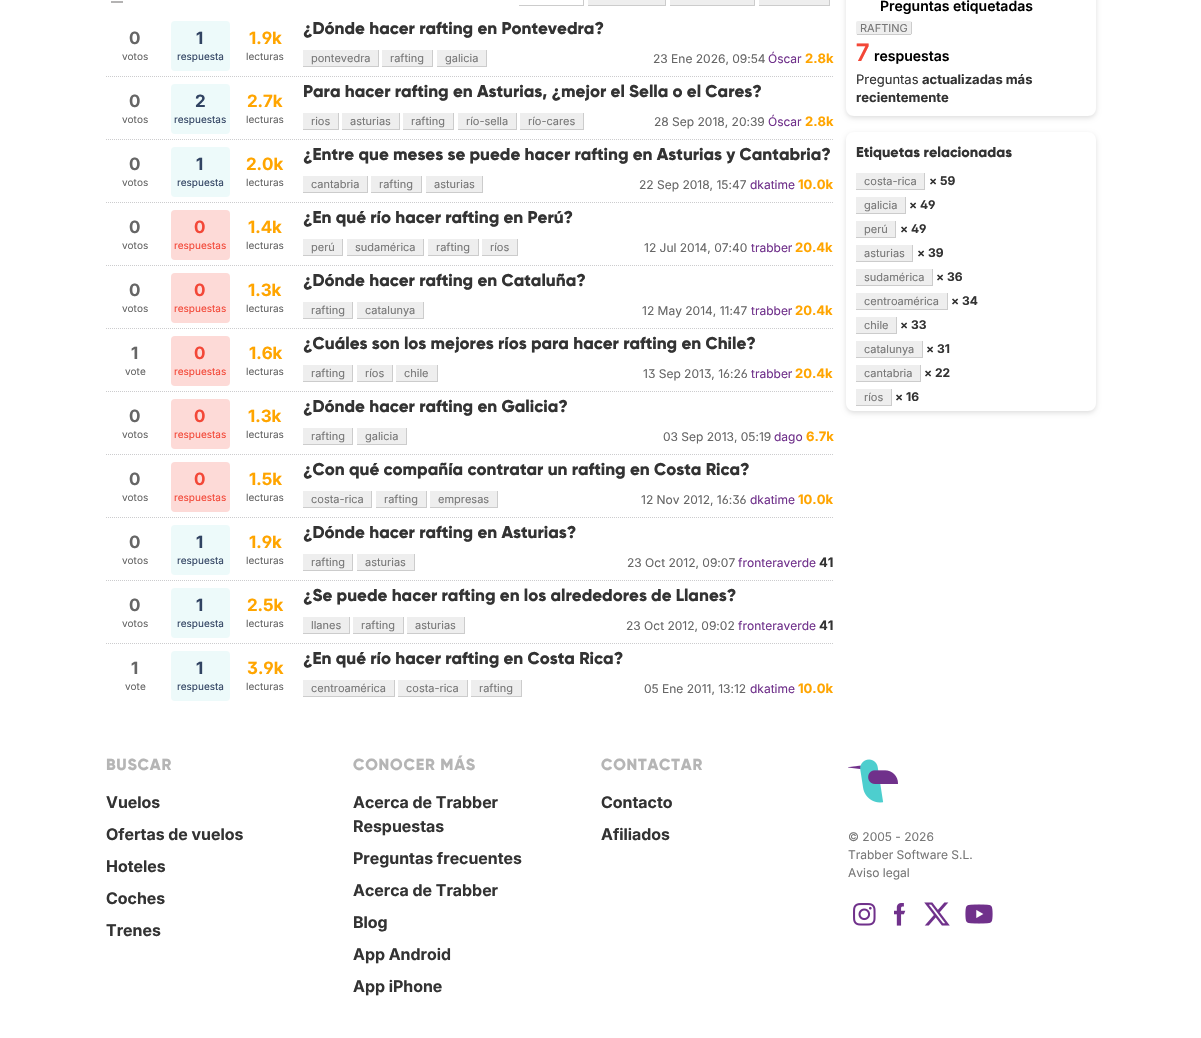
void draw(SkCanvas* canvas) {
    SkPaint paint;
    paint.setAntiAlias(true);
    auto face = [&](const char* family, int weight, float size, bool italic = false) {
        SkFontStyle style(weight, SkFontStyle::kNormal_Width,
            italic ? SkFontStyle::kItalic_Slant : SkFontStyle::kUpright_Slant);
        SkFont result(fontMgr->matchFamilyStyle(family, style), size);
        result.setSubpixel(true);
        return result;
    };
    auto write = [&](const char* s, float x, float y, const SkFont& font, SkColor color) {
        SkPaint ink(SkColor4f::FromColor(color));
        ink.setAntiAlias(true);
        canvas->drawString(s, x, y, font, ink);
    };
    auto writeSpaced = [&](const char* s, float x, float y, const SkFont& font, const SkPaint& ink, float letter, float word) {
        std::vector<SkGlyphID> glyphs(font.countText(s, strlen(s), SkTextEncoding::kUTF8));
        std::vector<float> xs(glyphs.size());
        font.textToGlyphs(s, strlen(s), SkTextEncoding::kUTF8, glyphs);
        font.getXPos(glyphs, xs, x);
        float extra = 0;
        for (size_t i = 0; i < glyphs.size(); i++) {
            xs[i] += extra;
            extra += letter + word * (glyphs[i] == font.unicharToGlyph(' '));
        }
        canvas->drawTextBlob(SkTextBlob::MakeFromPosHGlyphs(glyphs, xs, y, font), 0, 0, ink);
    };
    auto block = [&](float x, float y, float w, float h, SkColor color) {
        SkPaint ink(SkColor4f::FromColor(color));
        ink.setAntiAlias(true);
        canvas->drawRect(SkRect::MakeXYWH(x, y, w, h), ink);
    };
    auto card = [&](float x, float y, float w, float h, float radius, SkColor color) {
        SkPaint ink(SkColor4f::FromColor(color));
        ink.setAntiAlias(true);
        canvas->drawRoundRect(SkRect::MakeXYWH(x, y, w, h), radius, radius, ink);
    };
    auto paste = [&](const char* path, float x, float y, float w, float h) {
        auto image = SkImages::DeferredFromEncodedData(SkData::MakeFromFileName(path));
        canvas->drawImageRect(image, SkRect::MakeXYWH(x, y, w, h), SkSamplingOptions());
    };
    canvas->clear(SK_ColorWHITE);
    block(111, 1, 12, 2, SkColorSetRGB(180, 179, 179));
    block(583, 0, 1, 6, SkColorSetRGB(204, 204, 204));
    block(519, 5, 65, 1, SkColorSetRGB(204, 204, 204));
    block(588, 0, 78, 5, SkColorSetRGB(238, 238, 238));
    block(665, 0, 1, 6, SkColorSetRGB(204, 204, 204));
    block(588, 5, 78, 1, SkColorSetRGB(204, 204, 204));
    block(670, 0, 85, 5, SkColorSetRGB(238, 238, 238));
    block(754, 0, 1, 6, SkColorSetRGB(204, 204, 204));
    block(670, 5, 85, 1, SkColorSetRGB(204, 204, 204));
    block(759, 0, 71, 5, SkColorSetRGB(238, 238, 238));
    block(829, 0, 1, 6, SkColorSetRGB(204, 204, 204));
    block(759, 5, 71, 1, SkColorSetRGB(204, 204, 204));
    auto kFont1 = face("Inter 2", 700, 17);
    write("0", 129, 44, kFont1, SkColorSetRGB(102, 102, 102));
    auto kFont2 = face("Inter", 400, 10);
    write("votos", 122, 60, kFont2, SkColorSetRGB(102, 102, 102));
    card(171, 21, 59, 50, 4, SkColorSetRGB(237, 250, 250));
    write("1", 196, 44, kFont1, SkColorSetRGB(49, 67, 98));
    write("respuesta", 177, 60, kFont2, SkColorSetRGB(49, 67, 98));
    auto kFont3 = face("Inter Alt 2", 700, 17);
    write("1.9k", 249, 44, kFont3, SkColorSetRGB(255, 165, 0));
    write("lecturas", 246, 60, kFont2, SkColorSetRGB(102, 102, 102));
    auto kFont4 = face("Gilroy", 800, 17);
    write("¿Dónde hacer rafting en Pontevedra?", 303, 34, kFont4, SkColorSetRGB(51, 51, 51));
    block(303, 50, 75, 16, SkColorSetRGB(238, 238, 238));
    auto kFont5 = face("Inter", 400, 11);
    write("pontevedra", 311, 62, kFont5, SkColorSetRGB(119, 119, 119));
    block(378, 50, 1, 17, SkColorSetRGB(204, 204, 204));
    block(303, 66, 76, 1, SkColorSetRGB(204, 204, 204));
    block(382, 50, 50, 16, SkColorSetRGB(238, 238, 238));
    write("rafting", 390, 62, kFont5, SkColorSetRGB(119, 119, 119));
    block(432, 50, 1, 17, SkColorSetRGB(204, 204, 204));
    block(382, 66, 51, 1, SkColorSetRGB(204, 204, 204));
    block(437, 50, 49, 16, SkColorSetRGB(238, 238, 238));
    write("galicia", 445, 62, kFont5, SkColorSetRGB(119, 119, 119));
    block(486, 50, 1, 17, SkColorSetRGB(204, 204, 204));
    block(437, 66, 50, 1, SkColorSetRGB(204, 204, 204));
    auto kFont6 = face("Inter", 400, 12);
    write("23 Ene 2026, 09:54", 653, 63, kFont6, SkColorSetRGB(102, 102, 102));
    write("Óscar", 768, 63, kFont6, SkColorSetRGB(112, 49, 139));
    auto kFont7 = face("Inter", 700, 13);
    write("2.8k", 805, 63, kFont7, SkColorSetRGB(255, 165, 0));
    paint.setStyle(SkPaint::kStroke_Style);
    paint.setStrokeWidth(1);
    paint.setColor(SkColorSetRGB(204, 204, 206));
    paint.setPathEffect(SkDashPathEffect::Make({{1, 1}}, 0));
    canvas->drawPath(SkPathBuilder().moveTo(106, 76.5f).lineTo(834, 76.5f).detach(), paint);
    paint.setPathEffect(nullptr);
    write("0", 129, 107, kFont1, SkColorSetRGB(102, 102, 102));
    write("votos", 122, 123, kFont2, SkColorSetRGB(102, 102, 102));
    card(171, 84, 59, 50, 4, SkColorSetRGB(237, 250, 250));
    write("2", 195, 107, kFont1, SkColorSetRGB(49, 67, 98));
    write("respuestas", 174, 123, kFont2, SkColorSetRGB(49, 67, 98));
    write("2.7k", 247, 107, kFont1, SkColorSetRGB(255, 165, 0));
    write("lecturas", 246, 123, kFont2, SkColorSetRGB(102, 102, 102));
    write("Para hacer rafting en Asturias, ¿mejor el Sella o el Cares?", 303, 97, kFont4, SkColorSetRGB(51, 51, 51));
    block(303, 113, 35, 16, SkColorSetRGB(238, 238, 238));
    write("rios", 311, 125, kFont5, SkColorSetRGB(119, 119, 119));
    block(338, 113, 1, 17, SkColorSetRGB(204, 204, 204));
    block(303, 129, 36, 1, SkColorSetRGB(204, 204, 204));
    block(342, 113, 57, 16, SkColorSetRGB(238, 238, 238));
    write("asturias", 350, 125, kFont5, SkColorSetRGB(119, 119, 119));
    block(399, 113, 1, 17, SkColorSetRGB(204, 204, 204));
    block(342, 129, 58, 1, SkColorSetRGB(204, 204, 204));
    block(403, 113, 50, 16, SkColorSetRGB(238, 238, 238));
    write("rafting", 411, 125, kFont5, SkColorSetRGB(119, 119, 119));
    block(453, 113, 1, 17, SkColorSetRGB(204, 204, 204));
    block(403, 129, 51, 1, SkColorSetRGB(204, 204, 204));
    block(458, 113, 58, 16, SkColorSetRGB(238, 238, 238));
    write("río-sella", 466, 125, kFont5, SkColorSetRGB(119, 119, 119));
    block(516, 113, 1, 17, SkColorSetRGB(204, 204, 204));
    block(458, 129, 59, 1, SkColorSetRGB(204, 204, 204));
    block(520, 113, 63, 16, SkColorSetRGB(238, 238, 238));
    write("río-cares", 528, 125, kFont5, SkColorSetRGB(119, 119, 119));
    block(583, 113, 1, 17, SkColorSetRGB(204, 204, 204));
    block(520, 129, 64, 1, SkColorSetRGB(204, 204, 204));
    write("28 Sep 2018, 20:39", 654, 126, kFont6, SkColorSetRGB(102, 102, 102));
    write("Óscar", 768, 126, kFont6, SkColorSetRGB(112, 49, 139));
    write("2.8k", 805, 126, kFont7, SkColorSetRGB(255, 165, 0));
    paint.setPathEffect(SkDashPathEffect::Make({{1, 1}}, 0));
    canvas->drawPath(SkPathBuilder().moveTo(106, 139.5f).lineTo(834, 139.5f).detach(), paint);
    paint.setPathEffect(nullptr);
    write("0", 129, 170, kFont1, SkColorSetRGB(102, 102, 102));
    write("votos", 122, 186, kFont2, SkColorSetRGB(102, 102, 102));
    card(171, 147, 59, 50, 4, SkColorSetRGB(237, 250, 250));
    write("1", 196, 170, kFont1, SkColorSetRGB(49, 67, 98));
    write("respuesta", 177, 186, kFont2, SkColorSetRGB(49, 67, 98));
    write("2.0k", 246, 170, kFont1, SkColorSetRGB(255, 165, 0));
    write("lecturas", 246, 186, kFont2, SkColorSetRGB(102, 102, 102));
    write("¿Entre que meses se puede hacer rafting en Asturias y Cantabria?", 303, 160, kFont4, SkColorSetRGB(51, 51, 51));
    block(303, 176, 64, 16, SkColorSetRGB(238, 238, 238));
    write("cantabria", 311, 188, kFont5, SkColorSetRGB(119, 119, 119));
    block(367, 176, 1, 17, SkColorSetRGB(204, 204, 204));
    block(303, 192, 65, 1, SkColorSetRGB(204, 204, 204));
    block(371, 176, 50, 16, SkColorSetRGB(238, 238, 238));
    write("rafting", 379, 188, kFont5, SkColorSetRGB(119, 119, 119));
    block(421, 176, 1, 17, SkColorSetRGB(204, 204, 204));
    block(371, 192, 51, 1, SkColorSetRGB(204, 204, 204));
    block(426, 176, 56, 16, SkColorSetRGB(238, 238, 238));
    write("asturias", 434, 188, kFont5, SkColorSetRGB(119, 119, 119));
    block(482, 176, 1, 17, SkColorSetRGB(204, 204, 204));
    block(426, 192, 57, 1, SkColorSetRGB(204, 204, 204));
    write("22 Sep 2018, 15:47", 639, 189, kFont6, SkColorSetRGB(102, 102, 102));
    write("dkatime", 750, 189, kFont6, SkColorSetRGB(112, 49, 139));
    write("10.0k", 798, 189, kFont7, SkColorSetRGB(255, 165, 0));
    paint.setPathEffect(SkDashPathEffect::Make({{1, 1}}, 0));
    canvas->drawPath(SkPathBuilder().moveTo(106, 202.5f).lineTo(834, 202.5f).detach(), paint);
    paint.setPathEffect(nullptr);
    write("0", 129, 233, kFont1, SkColorSetRGB(102, 102, 102));
    write("votos", 122, 249, kFont2, SkColorSetRGB(102, 102, 102));
    card(171, 210, 59, 50, 4, SkColorSetRGB(253, 218, 215));
    write("0", 194, 233, kFont1, SkColorSetRGB(243, 71, 55));
    write("respuestas", 174, 249, kFont2, SkColorSetRGB(243, 71, 55));
    write("1.4k", 248, 233, kFont1, SkColorSetRGB(255, 165, 0));
    write("lecturas", 246, 249, kFont2, SkColorSetRGB(102, 102, 102));
    write("¿En qué río hacer rafting en Perú?", 303, 223, kFont4, SkColorSetRGB(51, 51, 51));
    block(303, 239, 39, 16, SkColorSetRGB(238, 238, 238));
    write("perú", 311, 251, kFont5, SkColorSetRGB(119, 119, 119));
    block(342, 239, 1, 17, SkColorSetRGB(204, 204, 204));
    block(303, 255, 40, 1, SkColorSetRGB(204, 204, 204));
    block(347, 239, 76, 16, SkColorSetRGB(238, 238, 238));
    write("sudamérica", 355, 251, kFont5, SkColorSetRGB(119, 119, 119));
    block(423, 239, 1, 17, SkColorSetRGB(204, 204, 204));
    block(347, 255, 77, 1, SkColorSetRGB(204, 204, 204));
    block(428, 239, 50, 16, SkColorSetRGB(238, 238, 238));
    write("rafting", 436, 251, kFont5, SkColorSetRGB(119, 119, 119));
    block(478, 239, 1, 17, SkColorSetRGB(204, 204, 204));
    block(428, 255, 51, 1, SkColorSetRGB(204, 204, 204));
    block(482, 239, 35, 16, SkColorSetRGB(238, 238, 238));
    write("ríos", 490, 251, kFont5, SkColorSetRGB(119, 119, 119));
    block(517, 239, 1, 17, SkColorSetRGB(204, 204, 204));
    block(482, 255, 36, 1, SkColorSetRGB(204, 204, 204));
    write("12 Jul 2014, 07:40", 644, 252, kFont6, SkColorSetRGB(102, 102, 102));
    write("trabber", 751, 252, kFont6, SkColorSetRGB(112, 49, 139));
    write("20.4k", 795, 252, kFont7, SkColorSetRGB(255, 165, 0));
    paint.setPathEffect(SkDashPathEffect::Make({{1, 1}}, 0));
    canvas->drawPath(SkPathBuilder().moveTo(106, 265.5f).lineTo(834, 265.5f).detach(), paint);
    paint.setPathEffect(nullptr);
    write("0", 129, 296, kFont1, SkColorSetRGB(102, 102, 102));
    write("votos", 122, 312, kFont2, SkColorSetRGB(102, 102, 102));
    card(171, 273, 59, 50, 4, SkColorSetRGB(253, 218, 215));
    write("0", 194, 296, kFont1, SkColorSetRGB(243, 71, 55));
    write("respuestas", 174, 312, kFont2, SkColorSetRGB(243, 71, 55));
    write("1.3k", 248, 296, kFont1, SkColorSetRGB(255, 165, 0));
    write("lecturas", 246, 312, kFont2, SkColorSetRGB(102, 102, 102));
    write("¿Dónde hacer rafting en Cataluña?", 303, 286, kFont4, SkColorSetRGB(51, 51, 51));
    block(303, 302, 49, 16, SkColorSetRGB(238, 238, 238));
    write("rafting", 311, 314, kFont5, SkColorSetRGB(119, 119, 119));
    block(352, 302, 1, 17, SkColorSetRGB(204, 204, 204));
    block(303, 318, 50, 1, SkColorSetRGB(204, 204, 204));
    block(357, 302, 66, 16, SkColorSetRGB(238, 238, 238));
    write("catalunya", 365, 314, kFont5, SkColorSetRGB(119, 119, 119));
    block(423, 302, 1, 17, SkColorSetRGB(204, 204, 204));
    block(357, 318, 67, 1, SkColorSetRGB(204, 204, 204));
    write("12 May 2014, 11:47", 642, 315, kFont6, SkColorSetRGB(102, 102, 102));
    write("trabber", 751, 315, kFont6, SkColorSetRGB(112, 49, 139));
    write("20.4k", 795, 315, kFont7, SkColorSetRGB(255, 165, 0));
    paint.setPathEffect(SkDashPathEffect::Make({{1, 1}}, 0));
    canvas->drawPath(SkPathBuilder().moveTo(106, 328.5f).lineTo(834, 328.5f).detach(), paint);
    paint.setPathEffect(nullptr);
    write("1", 131, 359, kFont1, SkColorSetRGB(102, 102, 102));
    write("vote", 125, 375, kFont2, SkColorSetRGB(102, 102, 102));
    card(171, 336, 59, 50, 4, SkColorSetRGB(253, 218, 215));
    write("0", 194, 359, kFont1, SkColorSetRGB(243, 71, 55));
    write("respuestas", 174, 375, kFont2, SkColorSetRGB(243, 71, 55));
    write("1.6k", 249, 359, kFont1, SkColorSetRGB(255, 165, 0));
    write("lecturas", 246, 375, kFont2, SkColorSetRGB(102, 102, 102));
    write("¿Cuáles son los mejores ríos para hacer rafting en Chile?", 303, 349, kFont4, SkColorSetRGB(51, 51, 51));
    block(303, 365, 49, 16, SkColorSetRGB(238, 238, 238));
    write("rafting", 311, 377, kFont5, SkColorSetRGB(119, 119, 119));
    block(352, 365, 1, 17, SkColorSetRGB(204, 204, 204));
    block(303, 381, 50, 1, SkColorSetRGB(204, 204, 204));
    block(357, 365, 35, 16, SkColorSetRGB(238, 238, 238));
    write("ríos", 365, 377, kFont5, SkColorSetRGB(119, 119, 119));
    block(392, 365, 1, 17, SkColorSetRGB(204, 204, 204));
    block(357, 381, 36, 1, SkColorSetRGB(204, 204, 204));
    block(396, 365, 41, 16, SkColorSetRGB(238, 238, 238));
    write("chile", 404, 377, kFont5, SkColorSetRGB(119, 119, 119));
    block(437, 365, 1, 17, SkColorSetRGB(204, 204, 204));
    block(396, 381, 42, 1, SkColorSetRGB(204, 204, 204));
    auto kFont8 = face("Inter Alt", 400, 12);
    write("13 Sep 2013, 16:26", 643, 378, kFont8, SkColorSetRGB(102, 102, 102));
    write("trabber", 751, 378, kFont6, SkColorSetRGB(112, 49, 139));
    write("20.4k", 795, 378, kFont7, SkColorSetRGB(255, 165, 0));
    paint.setPathEffect(SkDashPathEffect::Make({{1, 1}}, 0));
    canvas->drawPath(SkPathBuilder().moveTo(106, 391.5f).lineTo(834, 391.5f).detach(), paint);
    paint.setPathEffect(nullptr);
    write("0", 129, 422, kFont1, SkColorSetRGB(102, 102, 102));
    write("votos", 122, 438, kFont2, SkColorSetRGB(102, 102, 102));
    card(171, 399, 59, 50, 4, SkColorSetRGB(253, 218, 215));
    write("0", 194, 422, kFont1, SkColorSetRGB(243, 71, 55));
    write("respuestas", 174, 438, kFont2, SkColorSetRGB(243, 71, 55));
    write("1.3k", 248, 422, kFont1, SkColorSetRGB(255, 165, 0));
    write("lecturas", 246, 438, kFont2, SkColorSetRGB(102, 102, 102));
    write("¿Dónde hacer rafting en Galicia?", 303, 412, kFont4, SkColorSetRGB(51, 51, 51));
    block(303, 428, 49, 16, SkColorSetRGB(238, 238, 238));
    write("rafting", 311, 440, kFont5, SkColorSetRGB(119, 119, 119));
    block(352, 428, 1, 17, SkColorSetRGB(204, 204, 204));
    block(303, 444, 50, 1, SkColorSetRGB(204, 204, 204));
    block(357, 428, 49, 16, SkColorSetRGB(238, 238, 238));
    write("galicia", 365, 440, kFont5, SkColorSetRGB(119, 119, 119));
    block(406, 428, 1, 17, SkColorSetRGB(204, 204, 204));
    block(357, 444, 50, 1, SkColorSetRGB(204, 204, 204));
    write("03 Sep 2013, 05:19", 663, 441, kFont6, SkColorSetRGB(102, 102, 102));
    write("dago", 774, 441, kFont6, SkColorSetRGB(112, 49, 139));
    write("6.7k", 806, 441, kFont7, SkColorSetRGB(255, 165, 0));
    paint.setPathEffect(SkDashPathEffect::Make({{1, 1}}, 0));
    canvas->drawPath(SkPathBuilder().moveTo(106, 454.5f).lineTo(834, 454.5f).detach(), paint);
    paint.setPathEffect(nullptr);
    write("0", 129, 485, kFont1, SkColorSetRGB(102, 102, 102));
    write("votos", 122, 501, kFont2, SkColorSetRGB(102, 102, 102));
    card(171, 462, 59, 50, 4, SkColorSetRGB(253, 218, 215));
    write("0", 194, 485, kFont1, SkColorSetRGB(243, 71, 55));
    write("respuestas", 174, 501, kFont2, SkColorSetRGB(243, 71, 55));
    write("1.5k", 249, 485, kFont1, SkColorSetRGB(255, 165, 0));
    write("lecturas", 246, 501, kFont2, SkColorSetRGB(102, 102, 102));
    write("¿Con qué compañía contratar un rafting en Costa Rica?", 303, 475, kFont4, SkColorSetRGB(51, 51, 51));
    block(303, 491, 68, 16, SkColorSetRGB(238, 238, 238));
    write("costa-rica", 311, 503, kFont5, SkColorSetRGB(119, 119, 119));
    block(371, 491, 1, 17, SkColorSetRGB(204, 204, 204));
    block(303, 507, 69, 1, SkColorSetRGB(204, 204, 204));
    block(376, 491, 50, 16, SkColorSetRGB(238, 238, 238));
    write("rafting", 384, 503, kFont5, SkColorSetRGB(119, 119, 119));
    block(426, 491, 1, 17, SkColorSetRGB(204, 204, 204));
    block(376, 507, 51, 1, SkColorSetRGB(204, 204, 204));
    block(430, 491, 67, 16, SkColorSetRGB(238, 238, 238));
    write("empresas", 438, 503, kFont5, SkColorSetRGB(119, 119, 119));
    block(497, 491, 1, 17, SkColorSetRGB(204, 204, 204));
    block(430, 507, 68, 1, SkColorSetRGB(204, 204, 204));
    write("12 Nov 2012, 16:36", 641, 504, kFont8, SkColorSetRGB(102, 102, 102));
    write("dkatime", 750, 504, kFont6, SkColorSetRGB(112, 49, 139));
    write("10.0k", 798, 504, kFont7, SkColorSetRGB(255, 165, 0));
    paint.setPathEffect(SkDashPathEffect::Make({{1, 1}}, 0));
    canvas->drawPath(SkPathBuilder().moveTo(106, 517.5f).lineTo(834, 517.5f).detach(), paint);
    paint.setPathEffect(nullptr);
    write("0", 129, 548, kFont1, SkColorSetRGB(102, 102, 102));
    write("votos", 122, 564, kFont2, SkColorSetRGB(102, 102, 102));
    card(171, 525, 59, 50, 4, SkColorSetRGB(237, 250, 250));
    write("1", 196, 548, kFont1, SkColorSetRGB(49, 67, 98));
    write("respuesta", 177, 564, kFont2, SkColorSetRGB(49, 67, 98));
    write("1.9k", 249, 548, kFont3, SkColorSetRGB(255, 165, 0));
    write("lecturas", 246, 564, kFont2, SkColorSetRGB(102, 102, 102));
    write("¿Dónde hacer rafting en Asturias?", 303, 538, kFont4, SkColorSetRGB(51, 51, 51));
    block(303, 554, 49, 16, SkColorSetRGB(238, 238, 238));
    write("rafting", 311, 566, kFont5, SkColorSetRGB(119, 119, 119));
    block(352, 554, 1, 17, SkColorSetRGB(204, 204, 204));
    block(303, 570, 50, 1, SkColorSetRGB(204, 204, 204));
    block(357, 554, 57, 16, SkColorSetRGB(238, 238, 238));
    write("asturias", 365, 566, kFont5, SkColorSetRGB(119, 119, 119));
    block(414, 554, 1, 17, SkColorSetRGB(204, 204, 204));
    block(357, 570, 58, 1, SkColorSetRGB(204, 204, 204));
    write("23 Oct 2012, 09:07", 627, 567, kFont6, SkColorSetRGB(102, 102, 102));
    write("fronteraverde", 738, 567, kFont6, SkColorSetRGB(112, 49, 139));
    write("41", 819, 567, kFont7, SkColorSetRGB(51, 51, 51));
    paint.setPathEffect(SkDashPathEffect::Make({{1, 1}}, 0));
    canvas->drawPath(SkPathBuilder().moveTo(106, 580.5f).lineTo(834, 580.5f).detach(), paint);
    paint.setPathEffect(nullptr);
    write("0", 129, 611, kFont1, SkColorSetRGB(102, 102, 102));
    write("votos", 122, 627, kFont2, SkColorSetRGB(102, 102, 102));
    card(171, 588, 59, 50, 4, SkColorSetRGB(237, 250, 250));
    write("1", 196, 611, kFont1, SkColorSetRGB(49, 67, 98));
    write("respuesta", 177, 627, kFont2, SkColorSetRGB(49, 67, 98));
    write("2.5k", 247, 611, kFont1, SkColorSetRGB(255, 165, 0));
    write("lecturas", 246, 627, kFont2, SkColorSetRGB(102, 102, 102));
    write("¿Se puede hacer rafting en los alrededores de Llanes?", 303, 601, kFont4, SkColorSetRGB(51, 51, 51));
    block(303, 617, 46, 16, SkColorSetRGB(238, 238, 238));
    write("llanes", 311, 629, kFont5, SkColorSetRGB(119, 119, 119));
    block(349, 617, 1, 17, SkColorSetRGB(204, 204, 204));
    block(303, 633, 47, 1, SkColorSetRGB(204, 204, 204));
    block(353, 617, 50, 16, SkColorSetRGB(238, 238, 238));
    write("rafting", 361, 629, kFont5, SkColorSetRGB(119, 119, 119));
    block(403, 617, 1, 17, SkColorSetRGB(204, 204, 204));
    block(353, 633, 51, 1, SkColorSetRGB(204, 204, 204));
    block(407, 617, 57, 16, SkColorSetRGB(238, 238, 238));
    write("asturias", 415, 629, kFont5, SkColorSetRGB(119, 119, 119));
    block(464, 617, 1, 17, SkColorSetRGB(204, 204, 204));
    block(407, 633, 58, 1, SkColorSetRGB(204, 204, 204));
    write("23 Oct 2012, 09:02", 626, 630, kFont6, SkColorSetRGB(102, 102, 102));
    write("fronteraverde", 738, 630, kFont6, SkColorSetRGB(112, 49, 139));
    write("41", 819, 630, kFont7, SkColorSetRGB(51, 51, 51));
    paint.setPathEffect(SkDashPathEffect::Make({{1, 1}}, 0));
    canvas->drawPath(SkPathBuilder().moveTo(106, 643.5f).lineTo(834, 643.5f).detach(), paint);
    paint.setPathEffect(nullptr);
    write("1", 131, 674, kFont1, SkColorSetRGB(102, 102, 102));
    write("vote", 125, 690, kFont2, SkColorSetRGB(102, 102, 102));
    card(171, 651, 59, 50, 4, SkColorSetRGB(237, 250, 250));
    write("1", 196, 674, kFont1, SkColorSetRGB(49, 67, 98));
    write("respuesta", 177, 690, kFont2, SkColorSetRGB(49, 67, 98));
    write("3.9k", 247, 674, kFont3, SkColorSetRGB(255, 165, 0));
    write("lecturas", 246, 690, kFont2, SkColorSetRGB(102, 102, 102));
    write("¿En qué río hacer rafting en Costa Rica?", 303, 664, kFont4, SkColorSetRGB(51, 51, 51));
    block(303, 680, 91, 16, SkColorSetRGB(238, 238, 238));
    write("centroamérica", 311, 692, kFont5, SkColorSetRGB(119, 119, 119));
    block(394, 680, 1, 17, SkColorSetRGB(204, 204, 204));
    block(303, 696, 92, 1, SkColorSetRGB(204, 204, 204));
    block(398, 680, 69, 16, SkColorSetRGB(238, 238, 238));
    write("costa-rica", 406, 692, kFont5, SkColorSetRGB(119, 119, 119));
    block(467, 680, 1, 17, SkColorSetRGB(204, 204, 204));
    block(398, 696, 70, 1, SkColorSetRGB(204, 204, 204));
    block(471, 680, 50, 16, SkColorSetRGB(238, 238, 238));
    write("rafting", 479, 692, kFont5, SkColorSetRGB(119, 119, 119));
    block(521, 680, 1, 17, SkColorSetRGB(204, 204, 204));
    block(471, 696, 51, 1, SkColorSetRGB(204, 204, 204));
    write("05 Ene 2011, 13:12", 644, 693, kFont6, SkColorSetRGB(102, 102, 102));
    write("dkatime", 750, 693, kFont6, SkColorSetRGB(112, 49, 139));
    write("10.0k", 798, 693, kFont7, SkColorSetRGB(255, 165, 0));
    canvas->save();
    canvas->clipPath(SkPathBuilder(SkPathFillType::kEvenOdd).moveTo(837, 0).lineTo(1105, 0).lineTo(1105, 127).lineTo(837, 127).close().moveTo(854, -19).lineTo(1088, -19).cubicTo(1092.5f, -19, 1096, -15.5f, 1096, -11).lineTo(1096, 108).cubicTo(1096, 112.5f, 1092.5f, 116, 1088, 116).lineTo(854, 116).cubicTo(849.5f, 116, 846, 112.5f, 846, 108).lineTo(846, -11).cubicTo(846, -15.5f, 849.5f, -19, 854, -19).close().detach(), true);
    paint.setStyle(SkPaint::kFill_Style);
    paint.setColor(SkColorSetARGB(33, 0, 0, 0));
    paint.setMaskFilter(SkMaskFilter::MakeBlur(kNormal_SkBlurStyle, 2.5f));
    canvas->drawRoundRect(SkRect::MakeXYWH(846, -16, 250, 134), 8, 8, paint);
    paint.setMaskFilter(nullptr);
    canvas->restore();
    auto kFont9 = face("Inter", 600, 14);
    write("Preguntas etiquetadas", 880, 11, kFont9, SK_ColorBLACK);
    card(856, 21, 56, 14, 2, SkColorSetRGB(238, 238, 238));
    block(911, 22, 1, 12, SkColorSetRGB(204, 204, 204));
    block(857, 34, 54, 1, SkColorSetRGB(204, 204, 204));
    write("RAFTING", 860, 32, kFont5, SkColorSetRGB(119, 119, 119));
    auto kFont10 = face("Inter 2", 600, 24);
    write("7", 856, 61, kFont10, SkColorSetRGB(243, 71, 55));
    write("respuestas", 874, 61, kFont9, SK_ColorBLACK);
    auto kFont11 = face("Inter", 400, 13);
    write("Preguntas", 856, 84, kFont11, SkColorSetRGB(51, 51, 51));
    write("actualizadas más", 922, 84, kFont7, SkColorSetRGB(51, 51, 51));
    write("recientemente", 856, 102, kFont7, SkColorSetRGB(51, 51, 51));
    canvas->save();
    canvas->clipPath(SkPathBuilder(SkPathFillType::kEvenOdd).moveTo(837, 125).lineTo(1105, 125).lineTo(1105, 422).lineTo(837, 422).close().moveTo(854, 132).lineTo(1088, 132).cubicTo(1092.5f, 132, 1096, 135.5f, 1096, 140).lineTo(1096, 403).cubicTo(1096, 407.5f, 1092.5f, 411, 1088, 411).lineTo(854, 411).cubicTo(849.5f, 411, 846, 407.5f, 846, 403).lineTo(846, 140).cubicTo(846, 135.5f, 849.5f, 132, 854, 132).close().detach(), true);
    paint.setMaskFilter(SkMaskFilter::MakeBlur(kNormal_SkBlurStyle, 2.5f));
    canvas->drawRoundRect(SkRect::MakeXYWH(846, 134, 250, 279), 8, 8, paint);
    paint.setMaskFilter(nullptr);
    canvas->restore();
    auto kFont12 = face("Gilroy", 800, 14.4f);
    write("Etiquetas relacionadas", 856, 157, kFont12, SkColorSetRGB(51, 51, 51));
    block(856, 173, 68, 16, SkColorSetRGB(238, 238, 238));
    write("costa-rica", 864, 185, kFont5, SkColorSetRGB(119, 119, 119));
    block(924, 173, 1, 17, SkColorSetRGB(204, 204, 204));
    block(856, 189, 69, 1, SkColorSetRGB(204, 204, 204));
    auto kFont13 = face("Inter", 700, 12);
    write("× 59", 929, 185, kFont13, SkColorSetRGB(51, 51, 51));
    block(856, 197, 49, 16, SkColorSetRGB(238, 238, 238));
    write("galicia", 864, 209, kFont5, SkColorSetRGB(119, 119, 119));
    block(905, 197, 1, 17, SkColorSetRGB(204, 204, 204));
    block(856, 213, 50, 1, SkColorSetRGB(204, 204, 204));
    auto kFont14 = face("Inter Alt", 700, 12);
    write("× 49", 909, 209, kFont14, SkColorSetRGB(51, 51, 51));
    block(856, 221, 39, 16, SkColorSetRGB(238, 238, 238));
    write("perú", 864, 233, kFont5, SkColorSetRGB(119, 119, 119));
    block(895, 221, 1, 17, SkColorSetRGB(204, 204, 204));
    block(856, 237, 40, 1, SkColorSetRGB(204, 204, 204));
    write("× 49", 900, 233, kFont14, SkColorSetRGB(51, 51, 51));
    block(856, 245, 56, 16, SkColorSetRGB(238, 238, 238));
    write("asturias", 864, 257, kFont5, SkColorSetRGB(119, 119, 119));
    block(912, 245, 1, 17, SkColorSetRGB(204, 204, 204));
    block(856, 261, 57, 1, SkColorSetRGB(204, 204, 204));
    write("× 39", 917, 257, kFont13, SkColorSetRGB(51, 51, 51));
    block(856, 269, 76, 16, SkColorSetRGB(238, 238, 238));
    write("sudamérica", 864, 281, kFont5, SkColorSetRGB(119, 119, 119));
    block(932, 269, 1, 17, SkColorSetRGB(204, 204, 204));
    block(856, 285, 77, 1, SkColorSetRGB(204, 204, 204));
    write("× 36", 936, 281, kFont13, SkColorSetRGB(51, 51, 51));
    block(856, 293, 91, 16, SkColorSetRGB(238, 238, 238));
    write("centroamérica", 864, 305, kFont5, SkColorSetRGB(119, 119, 119));
    block(947, 293, 1, 17, SkColorSetRGB(204, 204, 204));
    block(856, 309, 92, 1, SkColorSetRGB(204, 204, 204));
    write("× 34", 951, 305, kFont13, SkColorSetRGB(51, 51, 51));
    block(856, 317, 40, 16, SkColorSetRGB(238, 238, 238));
    write("chile", 864, 329, kFont5, SkColorSetRGB(119, 119, 119));
    block(896, 317, 1, 17, SkColorSetRGB(204, 204, 204));
    block(856, 333, 41, 1, SkColorSetRGB(204, 204, 204));
    write("× 33", 900, 329, kFont13, SkColorSetRGB(51, 51, 51));
    block(856, 341, 66, 16, SkColorSetRGB(238, 238, 238));
    write("catalunya", 864, 353, kFont5, SkColorSetRGB(119, 119, 119));
    block(922, 341, 1, 17, SkColorSetRGB(204, 204, 204));
    block(856, 357, 67, 1, SkColorSetRGB(204, 204, 204));
    write("× 31", 926, 353, kFont13, SkColorSetRGB(51, 51, 51));
    block(856, 365, 64, 16, SkColorSetRGB(238, 238, 238));
    write("cantabria", 864, 377, kFont5, SkColorSetRGB(119, 119, 119));
    block(920, 365, 1, 17, SkColorSetRGB(204, 204, 204));
    block(856, 381, 65, 1, SkColorSetRGB(204, 204, 204));
    write("× 22", 924, 377, kFont13, SkColorSetRGB(51, 51, 51));
    block(856, 389, 35, 16, SkColorSetRGB(238, 238, 238));
    write("ríos", 864, 401, kFont5, SkColorSetRGB(119, 119, 119));
    block(891, 389, 1, 17, SkColorSetRGB(204, 204, 204));
    block(856, 405, 36, 1, SkColorSetRGB(204, 204, 204));
    write("× 16", 895, 401, kFont13, SkColorSetRGB(51, 51, 51));
    auto kFont15 = face("Gilroy", 800, 16);
    paint.setColor(SkColorSetRGB(181, 181, 181));
    writeSpaced("BUSCAR", 106, 770, kFont15, paint, 0.75f, 0);
    auto kFont16 = face("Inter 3", 700, 16);
    write("Vuelos", 106, 808, kFont16, SkColorSetRGB(51, 51, 51));
    write("Ofertas de vuelos", 106, 840, kFont16, SkColorSetRGB(51, 51, 51));
    write("Hoteles", 106, 872, kFont16, SkColorSetRGB(51, 51, 51));
    write("Coches", 106, 904, kFont16, SkColorSetRGB(51, 51, 51));
    write("Trenes", 106, 936, kFont16, SkColorSetRGB(51, 51, 51));
    writeSpaced("CONOCER MÁS", 353, 770, kFont15, paint, 0.75f, 0);
    write("Acerca de Trabber", 353, 808, kFont16, SkColorSetRGB(51, 51, 51));
    write("Respuestas", 353, 832, kFont16, SkColorSetRGB(51, 51, 51));
    write("Preguntas frecuentes", 353, 864, kFont16, SkColorSetRGB(51, 51, 51));
    write("Acerca de Trabber", 353, 896, kFont16, SkColorSetRGB(51, 51, 51));
    write("Blog", 353, 928, kFont16, SkColorSetRGB(51, 51, 51));
    write("App Android", 353, 960, kFont16, SkColorSetRGB(51, 51, 51));
    write("App iPhone", 353, 992, kFont16, SkColorSetRGB(51, 51, 51));
    writeSpaced("CONTACTAR", 601, 770, kFont15, paint, 0.75f, 0);
    write("Contacto", 601, 808, kFont16, SkColorSetRGB(51, 51, 51));
    write("Afiliados", 601, 840, kFont16, SkColorSetRGB(51, 51, 51));
    paste("pic1.png", 848, 759, 50, 44);
    write("© 2005 - 2026", 848, 841, kFont6, SkColorSetRGB(119, 119, 119));
    write("Trabber Software S.L.", 848, 859, kFont6, SkColorSetRGB(119, 119, 119));
    write("Aviso legal", 848, 877, kFont6, SkColorSetRGB(119, 119, 119));
    paste("pic2.png", 853, 903, 23, 23);
    paste("pic3.png", 894, 903, 12, 23);
    paste("pic4.png", 924, 902, 26, 24);
    paste("pic5.png", 965, 904, 28, 20);
}
